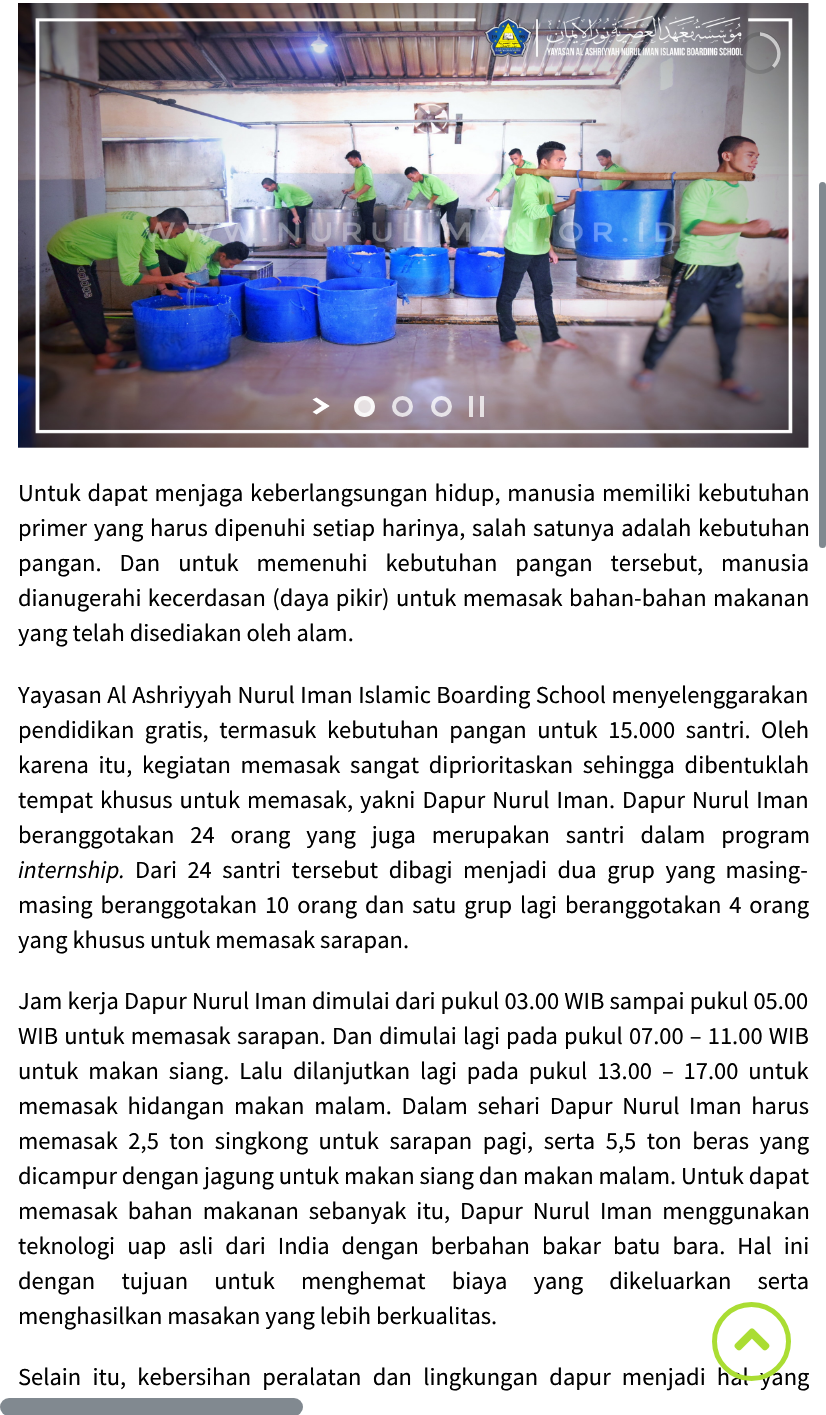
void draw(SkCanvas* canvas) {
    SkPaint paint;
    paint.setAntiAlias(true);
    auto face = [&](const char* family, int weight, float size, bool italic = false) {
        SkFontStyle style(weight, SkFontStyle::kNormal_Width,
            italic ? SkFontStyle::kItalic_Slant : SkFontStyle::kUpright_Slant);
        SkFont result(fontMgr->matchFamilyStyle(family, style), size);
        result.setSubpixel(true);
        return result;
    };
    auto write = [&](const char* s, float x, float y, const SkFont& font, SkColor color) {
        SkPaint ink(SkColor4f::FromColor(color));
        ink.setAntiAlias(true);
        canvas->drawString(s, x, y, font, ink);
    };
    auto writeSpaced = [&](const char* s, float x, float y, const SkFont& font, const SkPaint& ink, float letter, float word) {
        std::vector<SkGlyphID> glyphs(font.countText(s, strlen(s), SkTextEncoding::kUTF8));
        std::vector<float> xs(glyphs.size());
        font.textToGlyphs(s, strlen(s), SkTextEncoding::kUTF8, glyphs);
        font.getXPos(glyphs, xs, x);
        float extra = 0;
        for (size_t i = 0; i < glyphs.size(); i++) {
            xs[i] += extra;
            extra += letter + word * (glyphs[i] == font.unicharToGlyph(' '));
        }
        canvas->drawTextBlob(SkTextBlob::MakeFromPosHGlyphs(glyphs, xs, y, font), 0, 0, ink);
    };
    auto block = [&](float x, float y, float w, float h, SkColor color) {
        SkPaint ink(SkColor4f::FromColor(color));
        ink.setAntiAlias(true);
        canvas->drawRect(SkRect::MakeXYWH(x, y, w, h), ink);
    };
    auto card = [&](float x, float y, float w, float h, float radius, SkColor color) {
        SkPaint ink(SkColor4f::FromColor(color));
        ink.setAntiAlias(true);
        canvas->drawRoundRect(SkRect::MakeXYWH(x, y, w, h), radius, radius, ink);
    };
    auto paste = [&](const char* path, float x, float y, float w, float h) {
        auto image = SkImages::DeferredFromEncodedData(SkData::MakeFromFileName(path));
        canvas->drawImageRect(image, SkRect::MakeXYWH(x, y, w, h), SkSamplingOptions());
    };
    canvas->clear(SK_ColorWHITE);
    card(819, 182, 7, 366, 3.5f, SkColorSetRGB(129, 137, 144));
    paste("pic1.png", 18, 3, 791, 445);
    paint.setStyle(SkPaint::kStroke_Style);
    paint.setStrokeWidth(4);
    paint.setColor(SkColorSetARGB(33, 0, 0, 0));
    canvas->drawCircle(760, 53, 19, paint);
    canvas->save();
    canvas->clipRect(SkRect::MakeXYWH(760, 32, 21, 42));
    canvas->clipPath(SkPathBuilder().moveTo(789, 53).lineTo(774.5f, 68).lineTo(744.5f, 38.5f).lineTo(759.5f, 23.5f).close().detach(), true);
    paint.setStrokeWidth(3.5f);
    paint.setColor(SkColorSetARGB(166, 255, 255, 255));
    canvas->drawPath(SkPathBuilder().moveTo(773, 67).cubicTo(755.5f, 85, 728, 57.5f, 746, 39.5f).cubicTo(763.5f, 22, 791, 49, 773, 67).close().detach(), paint);
    canvas->restore();
    paint.setStyle(SkPaint::kFill_Style);
    paint.setColor(SK_ColorWHITE);
    canvas->drawPath(SkPathBuilder().moveTo(316.5f, 397.5f).lineTo(329.5f, 406).lineTo(325.5f, 408.5f).lineTo(312.5f, 399.5f).close().detach(), paint);
    canvas->drawPath(SkPathBuilder().moveTo(325.5f, 403.5f).lineTo(329.5f, 406).lineTo(316.5f, 414.5f).lineTo(312.5f, 412).close().detach(), paint);
    paint.setColor(SkColorSetARGB(191, 255, 255, 255));
    canvas->drawCircle(364.5f, 406.5f, 10.5f, paint);
    paint.setStyle(SkPaint::kStroke_Style);
    paint.setStrokeWidth(4);
    canvas->drawCircle(364.5f, 406.5f, 8.5f, paint);
    canvas->drawCircle(402.5f, 406.5f, 8.5f, paint);
    canvas->drawCircle(441.5f, 406.5f, 8.5f, paint);
    block(480, 396, 4, 21, SkColorSetARGB(191, 255, 255, 255));
    block(469, 396, 4, 21, SkColorSetARGB(191, 255, 255, 255));
    auto kFont1 = face("Source Sans Pro", 400, 24.5f);
    paint.setStyle(SkPaint::kFill_Style);
    paint.setColor(SK_ColorBLACK);
    writeSpaced("Untuk dapat menjaga keberlangsungan hidup, manusia memiliki kebutuhan", 18, 501, kFont1, paint, 0, 1.75f);
    writeSpaced("primer yang harus dipenuhi setiap harinya, salah satunya adalah kebutuhan", 18, 536, kFont1, paint, 0, 1.75f);
    writeSpaced("pangan. Dan untuk memenuhi kebutuhan pangan tersebut, manusia", 18, 571, kFont1, paint, 0, 13);
    writeSpaced("dianugerahi kecerdasan (daya pikir) untuk memasak bahan-bahan makanan", 18, 606, kFont1, paint, 0, 1.5f);
    write("yang telah disediakan oleh alam.", 18, 641, kFont1, SK_ColorBLACK);
    writeSpaced("Yayasan Al Ashriyyah Nurul Iman Islamic Boarding School menyelenggarakan", 18, 703, kFont1, paint, 0, 0.5f);
    writeSpaced("pendidikan gratis, termasuk kebutuhan pangan untuk 15.000 santri. Oleh", 18, 738, kFont1, paint, 0, 5.6f);
    writeSpaced("karena itu, kegiatan memasak sangat diprioritaskan sehingga dibentuklah", 18, 773, kFont1, paint, 0, 4.75f);
    writeSpaced("tempat khusus untuk memasak, yakni Dapur Nurul Iman. Dapur Nurul Iman", 18, 808, kFont1, paint, 0, 2.1f);
    writeSpaced("beranggotakan 24 orang yang juga merupakan santri dalam program", 18, 843, kFont1, paint, 0, 11);
    auto kFont2 = face("Source Sans Pro", 400, 24.5f, true);
    write("internship.", 18, 878, kFont2, SK_ColorBLACK);
    writeSpaced("Dari 24 santri tersebut dibagi menjadi dua grup yang masing-", 135, 878, kFont1, paint, 0, 5.6f);
    writeSpaced("masing beranggotakan 10 orang dan satu grup lagi beranggotakan 4 orang", 18, 913, kFont1, paint, 0, 3);
    write("yang khusus untuk memasak sarapan.", 18, 948, kFont1, SK_ColorBLACK);
    writeSpaced("Jam kerja Dapur Nurul Iman dimulai dari pukul 03.00 WIB sampai pukul 05.00", 18, 1009, kFont1, paint, 0, 0.25f);
    writeSpaced("WIB untuk memasak sarapan. Dan dimulai lagi pada pukul 07.00 – 11.00 WIB", 18, 1044, kFont1, paint, 0, 1.25f);
    writeSpaced("untuk makan siang. Lalu dilanjutkan lagi pada pukul 13.00 – 17.00 untuk", 18, 1079, kFont1, paint, 0, 5);
    writeSpaced("memasak hidangan makan malam. Dalam sehari Dapur Nurul Iman harus", 18, 1114, kFont1, paint, 0, 4.75f);
    writeSpaced("memasak 2,5 ton singkong untuk sarapan pagi, serta 5,5 ton beras yang", 18, 1149, kFont1, paint, 0, 5.6f);
    write("dicampur dengan jagung untuk makan siang dan makan malam. Untuk dapat", 18, 1184, kFont1, SK_ColorBLACK);
    writeSpaced("memasak bahan makanan sebanyak itu, Dapur Nurul Iman menggunakan", 18, 1219, kFont1, paint, 0, 5);
    writeSpaced("teknologi uap asli dari India dengan berbahan bakar batu bara. Hal ini", 18, 1254, kFont1, paint, 0, 7.1f);
    writeSpaced("dengan tujuan untuk menghemat biaya yang dikeluarkan serta", 18, 1289, kFont1, paint, 0, 21.25f);
    write("menghasilkan masakan yang lebih berkualitas.", 18, 1324, kFont1, SK_ColorBLACK);
    writeSpaced("Selain itu, kebersihan peralatan dan lingkungan dapur menjadi hal yang", 18, 1385, kFont1, paint, 0, 6.25f);
    paint.setStyle(SkPaint::kStroke_Style);
    paint.setStrokeWidth(5);
    paint.setColor(SkColorSetRGB(170, 221, 51));
    canvas->drawCircle(751.5f, 1341.5f, 37, paint);
    paste("pic2.png", 734, 1328, 36, 23);
    card(0, 1398, 303, 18, 9, SkColorSetARGB(204, 97, 107, 116));
}
